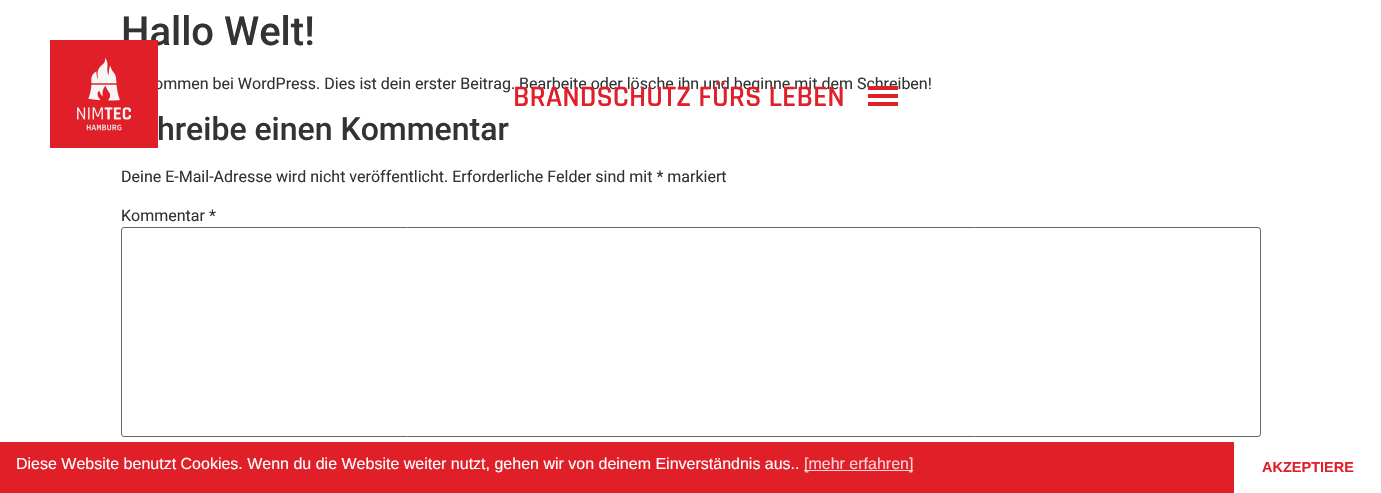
void draw(SkCanvas* canvas) {
    SkPaint paint;
    paint.setAntiAlias(true);
    auto face = [&](const char* family, int weight, float size, bool italic = false) {
        SkFontStyle style(weight, SkFontStyle::kNormal_Width,
            italic ? SkFontStyle::kItalic_Slant : SkFontStyle::kUpright_Slant);
        SkFont result(fontMgr->matchFamilyStyle(family, style), size);
        result.setSubpixel(true);
        return result;
    };
    auto write = [&](const char* s, float x, float y, const SkFont& font, SkColor color) {
        SkPaint ink(SkColor4f::FromColor(color));
        ink.setAntiAlias(true);
        canvas->drawString(s, x, y, font, ink);
    };
    auto block = [&](float x, float y, float w, float h, SkColor color) {
        SkPaint ink(SkColor4f::FromColor(color));
        ink.setAntiAlias(true);
        canvas->drawRect(SkRect::MakeXYWH(x, y, w, h), ink);
    };
    auto paste = [&](const char* path, float x, float y, float w, float h) {
        auto image = SkImages::DeferredFromEncodedData(SkData::MakeFromFileName(path));
        canvas->drawImageRect(image, SkRect::MakeXYWH(x, y, w, h), SkSamplingOptions());
    };
    canvas->clear(SK_ColorWHITE);
    auto kFont1 = face("Roboto", 500, 40);
    write("Hallo Welt!", 121, 45, kFont1, SkColorSetRGB(51, 51, 51));
    auto kFont2 = face("Roboto", 400, 16);
    write("ommen bei WordPress. Dies ist dein erster Beitrag. Bearbeite oder lösche ihn und beginne mit dem Schreiben!", 154, 89, kFont2, SkColorSetRGB(51, 51, 51));
    auto kFont3 = face("Roboto", 500, 32);
    write("hreibe einen Kommentar", 157, 140, kFont3, SkColorSetRGB(51, 51, 51));
    write("Deine E-Mail-Adresse wird nicht veröffentlicht. Erforderliche Felder sind mit * markiert", 121, 182, kFont2, SkColorSetRGB(51, 51, 51));
    write("Kommentar *", 121, 221, kFont2, SkColorSetRGB(51, 51, 51));
    paint.setStyle(SkPaint::kStroke_Style);
    paint.setStrokeWidth(1);
    paint.setColor(SkColorSetRGB(102, 102, 102));
    canvas->drawRoundRect(SkRect::MakeXYWH(121.5f, 227.5f, 1139, 209), 2.5f, 2.5f, paint);
    paste("pic1.png", 50, 40, 108, 108);
    auto kFont4 = face("Rajdhani", 600, 30);
    write("BRANDSCHUTZ FÜRS LEBEN", 513, 106, kFont4, SkColorSetRGB(225, 31, 41));
    block(868, 86, 30, 4, SkColorSetRGB(225, 31, 41));
    block(868, 94, 30, 4, SkColorSetRGB(225, 31, 41));
    block(868, 102, 30, 4, SkColorSetRGB(225, 31, 41));
    block(0, 442, 1234, 51, SkColorSetRGB(225, 31, 41));
    auto kFont5 = face("Liberation Sans", 400, 16);
    write("Diese Website benutzt Cookies. Wenn du die Website weiter nutzt, gehen wir von deinem Einverständnis aus..", 16, 469, kFont5, SK_ColorWHITE);
    block(804, 470, 109, 1, SkColorSetRGB(249, 210, 212));
    write("[mehr erfahren]", 804, 469, kFont5, SkColorSetRGB(249, 210, 212));
    auto kFont6 = face("Liberation Sans", 700, 14.5f);
    write("AKZEPTIERE", 1262, 472, kFont6, SkColorSetRGB(225, 31, 41));
}
